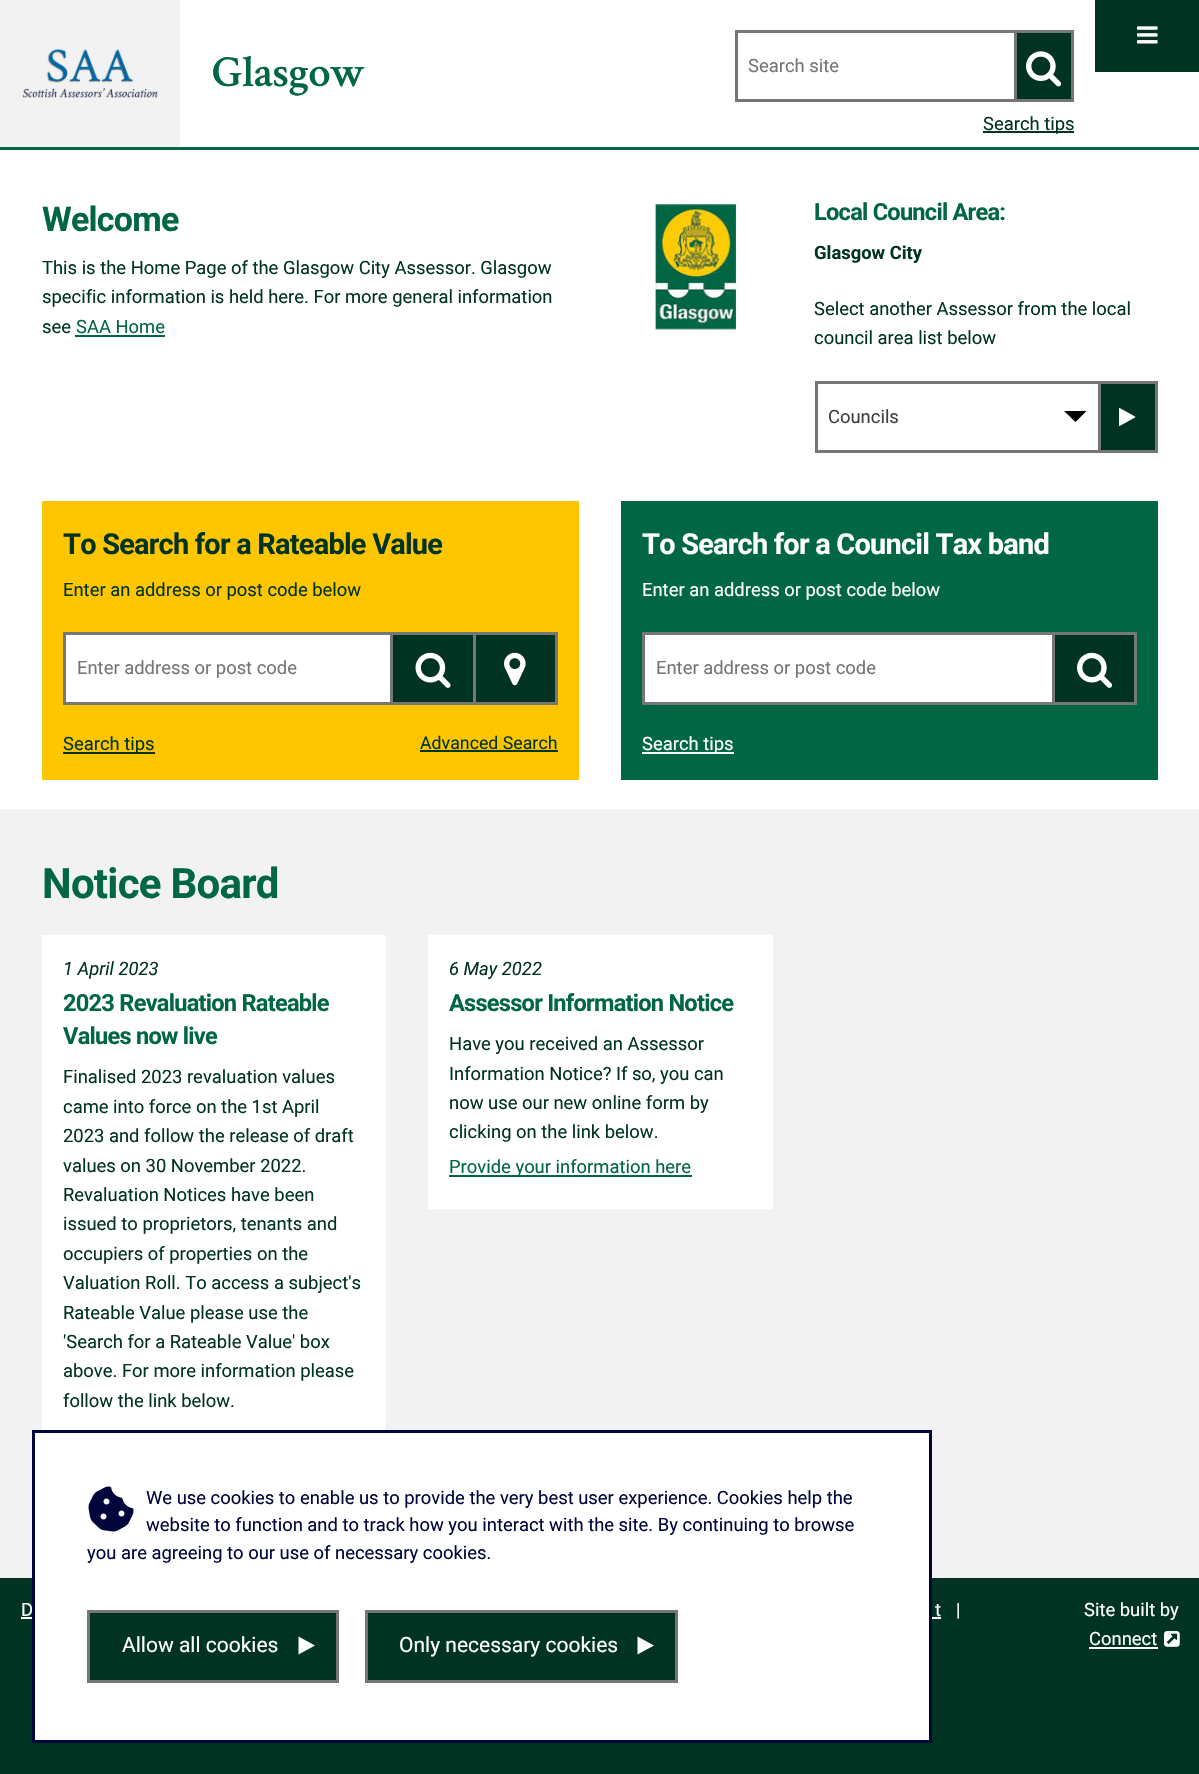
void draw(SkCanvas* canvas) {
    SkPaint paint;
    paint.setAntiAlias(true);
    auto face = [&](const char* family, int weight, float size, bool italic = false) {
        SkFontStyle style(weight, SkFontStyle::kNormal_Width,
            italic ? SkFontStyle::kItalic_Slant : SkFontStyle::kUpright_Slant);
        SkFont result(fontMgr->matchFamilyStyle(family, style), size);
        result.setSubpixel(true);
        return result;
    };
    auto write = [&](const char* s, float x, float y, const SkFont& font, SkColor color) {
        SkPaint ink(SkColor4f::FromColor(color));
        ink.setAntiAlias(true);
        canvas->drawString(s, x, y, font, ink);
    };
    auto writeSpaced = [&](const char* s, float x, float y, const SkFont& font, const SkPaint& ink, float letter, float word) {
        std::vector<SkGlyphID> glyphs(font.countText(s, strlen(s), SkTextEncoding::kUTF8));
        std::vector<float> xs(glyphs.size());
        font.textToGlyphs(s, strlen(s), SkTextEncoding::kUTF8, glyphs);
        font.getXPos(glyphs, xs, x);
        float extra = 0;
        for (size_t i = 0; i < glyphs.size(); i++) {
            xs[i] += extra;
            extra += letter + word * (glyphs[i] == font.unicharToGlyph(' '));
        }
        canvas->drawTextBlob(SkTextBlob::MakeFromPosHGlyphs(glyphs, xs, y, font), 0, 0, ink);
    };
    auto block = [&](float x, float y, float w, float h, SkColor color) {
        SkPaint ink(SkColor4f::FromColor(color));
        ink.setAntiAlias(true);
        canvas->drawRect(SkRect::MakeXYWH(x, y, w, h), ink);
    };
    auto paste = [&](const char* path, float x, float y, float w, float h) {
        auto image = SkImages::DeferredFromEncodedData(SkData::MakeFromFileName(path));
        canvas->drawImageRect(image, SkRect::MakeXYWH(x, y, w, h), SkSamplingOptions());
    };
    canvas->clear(SkColorSetRGB(0, 51, 34));
    block(180, 0, 1019, 147, SK_ColorWHITE);
    block(0, 147, 1199, 3, SkColorSetRGB(1, 102, 68));
    block(0, 0, 180, 147, SkColorSetRGB(242, 242, 242));
    paste("pic1.png", 22, 49, 136, 49);
    block(1095, 0, 104, 72, SkColorSetRGB(0, 51, 34));
    paste("pic2.png", 1137, 26, 21, 18);
    auto kFont1 = face("Crimson Text", 600, 44.5f);
    paint.setColor(SkColorSetRGB(1, 102, 68));
    writeSpaced("Glasgow", 212, 86, kFont1, paint, -0.75f, 0);
    paint.setStyle(SkPaint::kStroke_Style);
    paint.setStrokeWidth(3);
    paint.setColor(SkColorSetRGB(118, 118, 118));
    canvas->drawRect(SkRect::MakeXYWH(736.5f, 31.5f, 279, 69), paint);
    auto kFont2 = face("Roboto", 400, 18.4f);
    write("Search site", 748, 72, kFont2, SkColorSetRGB(117, 117, 117));
    block(1017, 33, 54, 66, SkColorSetRGB(0, 51, 34));
    block(1017, 30, 57, 3, SkColorSetRGB(118, 118, 118));
    block(1071, 30, 3, 72, SkColorSetRGB(118, 118, 118));
    block(1017, 99, 57, 3, SkColorSetRGB(118, 118, 118));
    paste("pic3.png", 1026, 51, 36, 36);
    block(983, 131, 91, 2, SkColorSetRGB(0, 51, 34));
    write("Search tips", 983, 130, kFont2, SkColorSetRGB(0, 51, 34));
    block(0, 150, 1199, 659, SK_ColorWHITE);
    auto kFont3 = face("Roboto", 700, 34);
    paint.setStyle(SkPaint::kFill_Style);
    paint.setColor(SkColorSetRGB(1, 102, 68));
    writeSpaced("Welcome", 42, 231, kFont3, paint, -0.75f, 0);
    write("This is the Home Page of the Glasgow City Assessor. Glasgow", 42, 274, kFont2, SkColorSetRGB(0, 51, 34));
    write("specific information is held here. For more general information", 42, 303, kFont2, SkColorSetRGB(0, 51, 34));
    write("see", 42, 333, kFont2, SkColorSetRGB(0, 51, 34));
    write("SAA Home", 76, 333, kFont2, SkColorSetRGB(1, 102, 68));
    block(75, 335, 90, 2, SkColorSetRGB(1, 102, 68));
    paste("pic4.png", 655, 203, 82, 129);
    auto kFont4 = face("Roboto", 700, 23.6f);
    writeSpaced("Local Council Area:", 814, 220, kFont4, paint, -0.75f, 0);
    auto kFont5 = face("Roboto", 700, 18.4f);
    write("Glasgow City", 814, 259, kFont5, SkColorSetRGB(0, 51, 34));
    write("Select another Assessor from the local", 814, 315, kFont2, SkColorSetRGB(0, 51, 34));
    write("council area list below", 814, 344, kFont2, SkColorSetRGB(0, 51, 34));
    paint.setColor(SK_ColorBLACK);
    canvas->drawPath(SkPathBuilder().moveTo(1086.5f, 411).lineTo(1075.5f, 422).lineTo(1064, 411).close().detach(), paint);
    paint.setStyle(SkPaint::kStroke_Style);
    paint.setColor(SkColorSetRGB(118, 118, 118));
    canvas->drawRect(SkRect::MakeXYWH(816.5f, 382.5f, 283, 69), paint);
    write("Councils", 828, 423, kFont2, SkColorSetRGB(64, 64, 64));
    block(1101, 384, 54, 66, SkColorSetRGB(0, 51, 34));
    block(1101, 381, 57, 3, SkColorSetRGB(118, 118, 118));
    block(1155, 381, 3, 72, SkColorSetRGB(118, 118, 118));
    block(1101, 450, 57, 3, SkColorSetRGB(118, 118, 118));
    paste("pic5.png", 1119, 408, 17, 18);
    block(42, 501, 537, 279, SkColorSetRGB(253, 198, 1));
    auto kFont6 = face("Roboto", 700, 28.9f);
    paint.setStyle(SkPaint::kFill_Style);
    paint.setColor(SkColorSetRGB(0, 51, 34));
    writeSpaced("To Search for a Rateable Value", 63, 554, kFont6, paint, -0.75f, 0);
    write("Enter an address or post code below", 63, 596, kFont2, SkColorSetRGB(0, 51, 34));
    block(393, 635, 80, 67, SkColorSetRGB(0, 51, 34));
    block(393, 632, 165, 3, SkColorSetRGB(118, 118, 118));
    block(473, 632, 3, 73, SkColorSetRGB(118, 118, 118));
    block(393, 702, 83, 3, SkColorSetRGB(118, 118, 118));
    paste("pic6.png", 415, 652, 36, 36);
    paint.setColor(SK_ColorWHITE);
    canvas->drawRect(SkRect::MakeXYWH(64.5f, 633.5f, 327, 70), paint);
    paint.setStyle(SkPaint::kStroke_Style);
    paint.setColor(SkColorSetRGB(118, 118, 118));
    canvas->drawRect(SkRect::MakeXYWH(64.5f, 633.5f, 327, 70), paint);
    write("Enter address or post code", 77, 674, kFont2, SkColorSetRGB(117, 117, 117));
    block(476, 635, 79, 67, SkColorSetRGB(0, 51, 34));
    block(555, 632, 3, 73, SkColorSetRGB(118, 118, 118));
    block(476, 702, 82, 3, SkColorSetRGB(118, 118, 118));
    paste("pic7.png", 504, 652, 22, 34);
    block(63, 752, 92, 2, SkColorSetRGB(0, 51, 34));
    write("Search tips", 63, 750, kFont2, SkColorSetRGB(0, 51, 34));
    auto kFont7 = face("Roboto", 400, 17.75f);
    write("Advanced Search", 420, 749, kFont7, SkColorSetRGB(0, 51, 34));
    block(420, 750, 138, 2, SkColorSetRGB(0, 51, 34));
    block(621, 501, 537, 279, SkColorSetRGB(1, 102, 68));
    paint.setStyle(SkPaint::kFill_Style);
    paint.setColor(SK_ColorWHITE);
    writeSpaced("To Search for a Council Tax band", 642, 554, kFont6, paint, -0.75f, 0);
    write("Enter an address or post code below", 642, 596, kFont2, SK_ColorWHITE);
    canvas->drawRect(SkRect::MakeXYWH(643.5f, 633.5f, 410, 70), paint);
    paint.setStyle(SkPaint::kStroke_Style);
    paint.setColor(SkColorSetRGB(118, 118, 118));
    canvas->drawRect(SkRect::MakeXYWH(643.5f, 633.5f, 410, 70), paint);
    write("Enter address or post code", 656, 674, kFont2, SkColorSetRGB(117, 117, 117));
    block(1055, 635, 79, 67, SkColorSetRGB(0, 51, 34));
    block(1055, 632, 82, 3, SkColorSetRGB(118, 118, 118));
    block(1134, 632, 3, 73, SkColorSetRGB(118, 118, 118));
    block(1055, 702, 82, 3, SkColorSetRGB(118, 118, 118));
    paste("pic8.png", 1077, 652, 36, 36);
    block(642, 752, 92, 2, SK_ColorWHITE);
    write("Search tips", 642, 750, kFont2, SK_ColorWHITE);
    block(0, 809, 1199, 769, SkColorSetRGB(242, 242, 242));
    auto kFont8 = face("Roboto", 700, 42);
    paint.setStyle(SkPaint::kFill_Style);
    paint.setColor(SkColorSetRGB(1, 102, 68));
    writeSpaced("Notice Board", 42, 898, kFont8, paint, -0.75f, 0);
    block(42, 935, 344, 495, SK_ColorWHITE);
    auto kFont9 = face("Roboto", 400, 18.4f, true);
    write("1 April 2023", 63, 975, kFont9, SkColorSetRGB(0, 51, 34));
    writeSpaced("2023 Revaluation Rateable", 63, 1011, kFont4, paint, -0.75f, 0);
    writeSpaced("Values now live", 63, 1044, kFont4, paint, -0.75f, 0);
    write("Finalised 2023 revaluation values", 63, 1083, kFont2, SkColorSetRGB(0, 51, 34));
    write("came into force on the 1st April", 63, 1113, kFont2, SkColorSetRGB(0, 51, 34));
    write("2023 and follow the release of draft", 63, 1142, kFont2, SkColorSetRGB(0, 51, 34));
    write("values on 30 November 2022.", 63, 1172, kFont2, SkColorSetRGB(0, 51, 34));
    write("Revaluation Notices have been", 63, 1201, kFont2, SkColorSetRGB(0, 51, 34));
    write("issued to proprietors, tenants and", 63, 1230, kFont2, SkColorSetRGB(0, 51, 34));
    write("occupiers of properties on the", 63, 1260, kFont2, SkColorSetRGB(0, 51, 34));
    write("Valuation Roll. To access a subject's", 63, 1289, kFont2, SkColorSetRGB(0, 51, 34));
    write("Rateable Value please use the", 63, 1319, kFont2, SkColorSetRGB(0, 51, 34));
    write("'Search for a Rateable Value' box", 63, 1348, kFont2, SkColorSetRGB(0, 51, 34));
    write("above. For more information please", 63, 1377, kFont2, SkColorSetRGB(0, 51, 34));
    write("follow the link below.", 63, 1407, kFont2, SkColorSetRGB(0, 51, 34));
    block(428, 935, 345, 274, SK_ColorWHITE);
    write("6 May 2022", 449, 975, kFont9, SkColorSetRGB(0, 51, 34));
    writeSpaced("Assessor Information Notice", 449, 1011, kFont4, paint, -0.75f, 0);
    write("Have you received an Assessor", 449, 1050, kFont2, SkColorSetRGB(0, 51, 34));
    write("Information Notice? If so, you can", 449, 1080, kFont2, SkColorSetRGB(0, 51, 34));
    write("now use our new online form by", 449, 1109, kFont2, SkColorSetRGB(0, 51, 34));
    write("clicking on the link below.", 449, 1138, kFont2, SkColorSetRGB(0, 51, 34));
    block(449, 1175, 243, 2, SkColorSetRGB(1, 102, 68));
    write("Provide your information here", 449, 1173, kFont2, SkColorSetRGB(1, 102, 68));
    write("D", 21, 1616, kFont2, SK_ColorWHITE);
    block(21, 1617, 11, 2, SK_ColorWHITE);
    write("t", 935, 1616, kFont2, SK_ColorWHITE);
    block(932, 1617, 9, 2, SK_ColorWHITE);
    write("|", 956, 1616, kFont2, SK_ColorWHITE);
    write("Site built by", 1084, 1616, kFont2, SK_ColorWHITE);
    write("Connect", 1089, 1645, kFont2, SK_ColorWHITE);
    block(1089, 1647, 69, 2, SK_ColorWHITE);
    paste("pic9.png", 1164, 1631, 16, 16);
    paint.setColor(SK_ColorWHITE);
    canvas->drawRect(SkRect::MakeXYWH(33.5f, 1431.5f, 897, 310), paint);
    paint.setStyle(SkPaint::kStroke_Style);
    paint.setColor(SkColorSetRGB(0, 6, 59));
    canvas->drawRect(SkRect::MakeXYWH(33.5f, 1431.5f, 897, 310), paint);
    paste("pic10.png", 88, 1486, 46, 46);
    write("We use cookies to enable us to provide the very best user experience. Cookies help the", 146, 1504, kFont2, SkColorSetRGB(0, 6, 59));
    write("website to function and to track how you interact with the site. By continuing to browse", 146, 1531, kFont2, SkColorSetRGB(0, 6, 59));
    write("you are agreeing to our use of necessary cookies.", 87, 1559, kFont2, SkColorSetRGB(0, 6, 59));
    paint.setStyle(SkPaint::kFill_Style);
    paint.setColor(SkColorSetRGB(0, 51, 34));
    canvas->drawRect(SkRect::MakeXYWH(88.5f, 1611.5f, 249, 70), paint);
    paint.setStyle(SkPaint::kStroke_Style);
    paint.setColor(SkColorSetRGB(118, 118, 118));
    canvas->drawRect(SkRect::MakeXYWH(88.5f, 1611.5f, 249, 70), paint);
    auto kFont10 = face("Roboto", 400, 21);
    write("Allow all cookies", 122, 1652, kFont10, SK_ColorWHITE);
    paint.setStyle(SkPaint::kFill_Style);
    paint.setColor(SK_ColorWHITE);
    canvas->drawPath(SkPathBuilder().moveTo(298.5f, 1654.5f).lineTo(298.5f, 1636.5f).lineTo(315, 1645.5f).close().detach(), paint);
    paint.setColor(SkColorSetRGB(0, 51, 34));
    canvas->drawRect(SkRect::MakeXYWH(366.5f, 1611.5f, 310, 70), paint);
    paint.setStyle(SkPaint::kStroke_Style);
    paint.setColor(SkColorSetRGB(118, 118, 118));
    canvas->drawRect(SkRect::MakeXYWH(366.5f, 1611.5f, 310, 70), paint);
    write("Only necessary cookies", 399, 1652, kFont10, SK_ColorWHITE);
    paint.setStyle(SkPaint::kFill_Style);
    paint.setColor(SK_ColorWHITE);
    canvas->drawPath(SkPathBuilder().moveTo(637.5f, 1654.5f).lineTo(637.5f, 1636.5f).lineTo(654, 1645.5f).close().detach(), paint);
}
